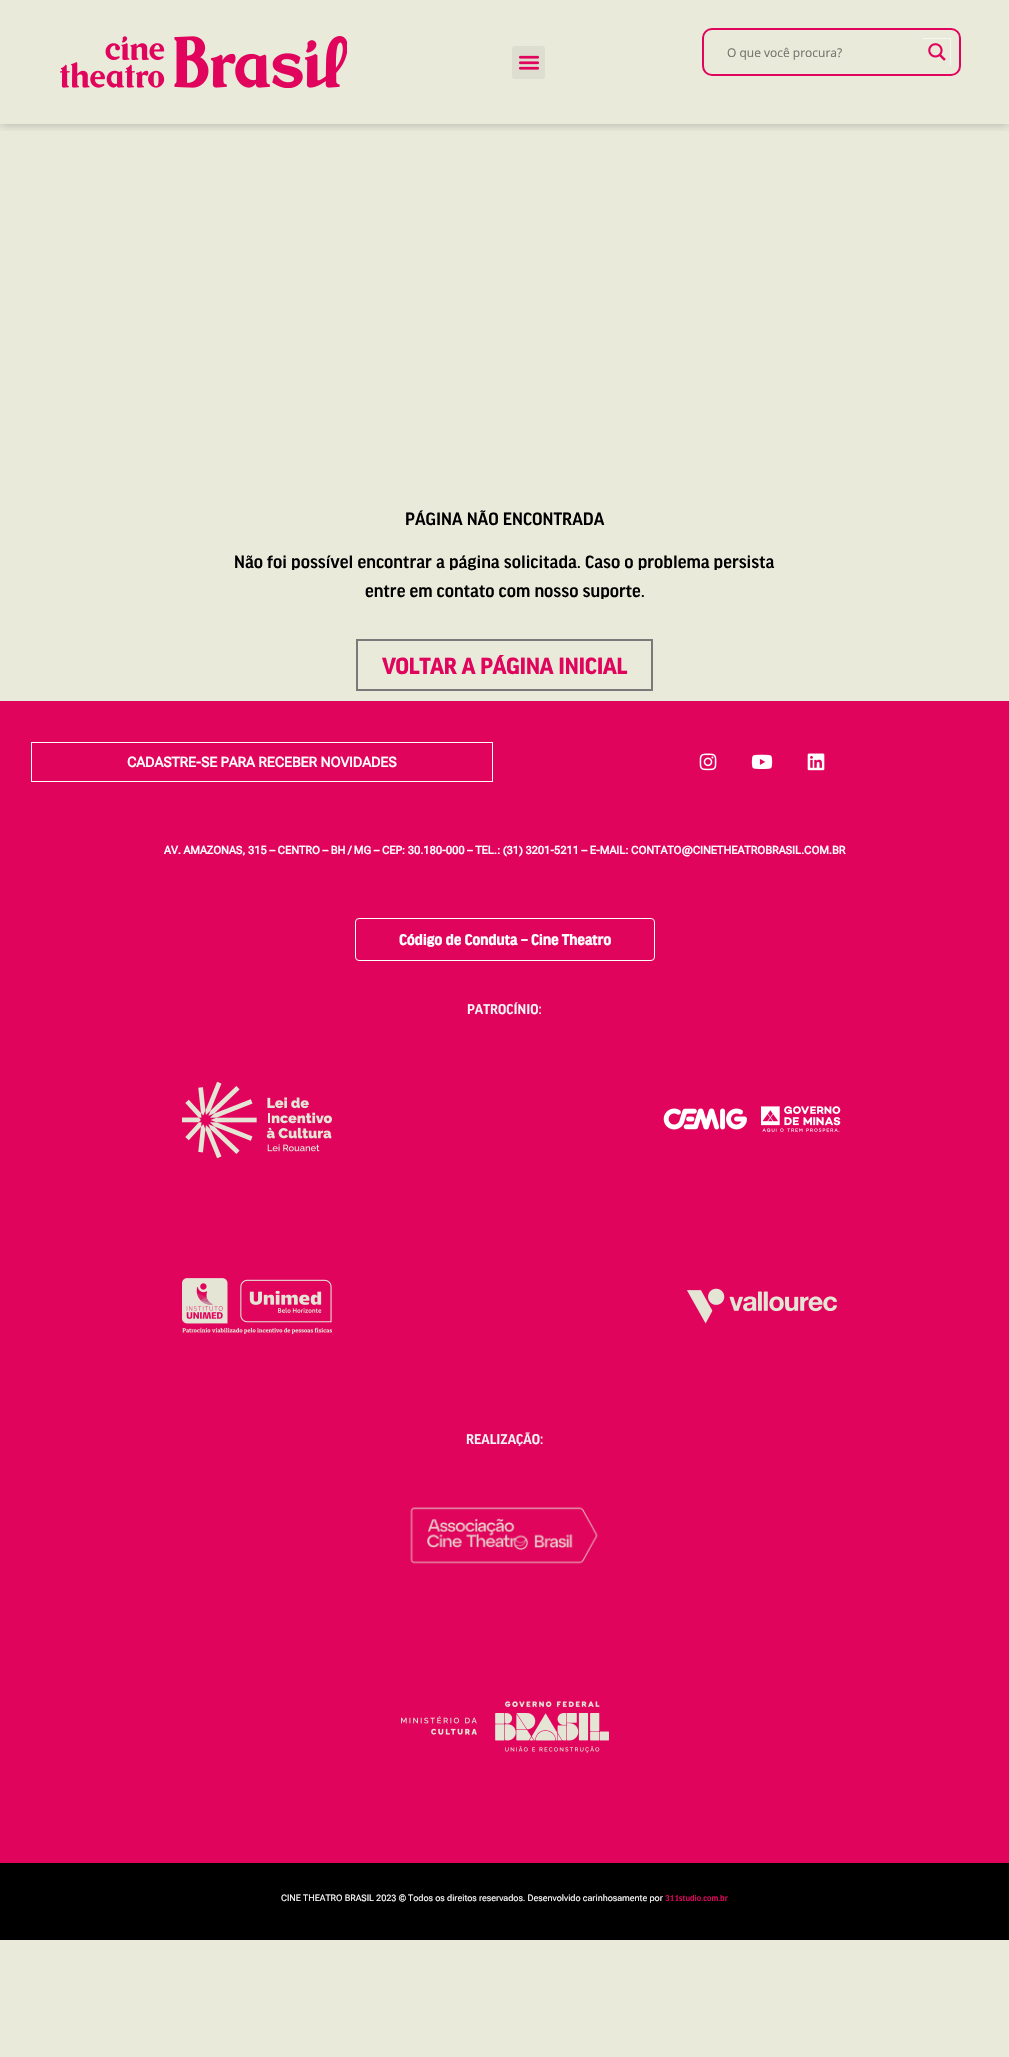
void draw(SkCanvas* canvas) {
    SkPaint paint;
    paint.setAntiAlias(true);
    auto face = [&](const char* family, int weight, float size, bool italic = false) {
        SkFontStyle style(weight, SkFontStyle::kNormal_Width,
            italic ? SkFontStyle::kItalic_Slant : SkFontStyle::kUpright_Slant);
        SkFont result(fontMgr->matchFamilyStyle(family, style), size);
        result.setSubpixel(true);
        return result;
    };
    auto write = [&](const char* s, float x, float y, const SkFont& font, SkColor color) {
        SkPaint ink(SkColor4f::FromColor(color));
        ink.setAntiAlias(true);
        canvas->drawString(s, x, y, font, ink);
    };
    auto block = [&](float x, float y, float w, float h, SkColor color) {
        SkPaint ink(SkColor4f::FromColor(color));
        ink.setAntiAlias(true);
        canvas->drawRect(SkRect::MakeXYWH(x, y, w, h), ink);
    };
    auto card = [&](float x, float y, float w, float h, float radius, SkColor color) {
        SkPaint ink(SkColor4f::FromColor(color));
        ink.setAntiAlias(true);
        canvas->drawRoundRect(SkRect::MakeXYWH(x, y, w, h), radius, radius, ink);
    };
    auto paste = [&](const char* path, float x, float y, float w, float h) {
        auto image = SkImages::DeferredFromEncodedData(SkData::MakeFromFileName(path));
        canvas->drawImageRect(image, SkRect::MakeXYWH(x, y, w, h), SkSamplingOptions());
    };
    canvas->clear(SkColorSetRGB(233, 234, 218));
    canvas->save();
    canvas->clipRect(SkRect::MakeXYWH(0, 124, 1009, 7));
    paint.setColor(SkColorSetARGB(66, 0, 0, 0));
    paint.setMaskFilter(SkMaskFilter::MakeBlur(kNormal_SkBlurStyle, 5));
    canvas->drawRect(SkRect::MakeXYWH(0, 0, 1009, 124), paint);
    paint.setMaskFilter(nullptr);
    canvas->restore();
    paste("pic1.png", 60, 36, 287, 52);
    card(512, 46, 33, 33, 3, SkColorSetRGB(221, 222, 207));
    paste("pic2.png", 518, 55, 22, 15);
    paint.setStyle(SkPaint::kStroke_Style);
    paint.setStrokeWidth(2);
    paint.setColor(SkColorSetRGB(224, 4, 92));
    canvas->drawRoundRect(SkRect::MakeXYWH(703, 29, 257, 46), 9, 9, paint);
    auto kFont1 = face("Open Sans", 400, 12);
    write("O que você procura?", 727, 57, kFont1, SkColorSetRGB(114, 115, 107));
    canvas->save();
    canvas->clipRect(SkRect::MakeXYWH(923, 38, 28, 28));
    paint.setStyle(SkPaint::kFill_Style);
    paint.setColor(SkColorSetRGB(247, 247, 242));
    canvas->drawPath(SkPathBuilder(SkPathFillType::kEvenOdd).moveTo(824, 74).lineTo(937, 74).cubicTo(949, 74, 959, 64, 959, 52).cubicTo(959, 40, 949, 30, 937, 30).lineTo(824, 30).close().moveTo(922, 39).lineTo(950, 39).lineTo(950, 67).lineTo(922, 67).close().detach(), paint);
    canvas->restore();
    paste("pic3.png", 928, 43, 18, 18);
    auto kFont2 = face("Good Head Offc", 500, 19);
    write("PÁGINA NÃO ENCONTRADA", 405, 525, kFont2, SK_ColorBLACK);
    write("Não foi possível encontrar a página solicitada. Caso o problema persista", 234, 568, kFont2, SK_ColorBLACK);
    write("entre em contato com nosso suporte.", 365, 597, kFont2, SK_ColorBLACK);
    paint.setStyle(SkPaint::kStroke_Style);
    paint.setColor(SkColorSetRGB(122, 122, 122));
    canvas->drawRect(SkRect::MakeXYWH(357, 640, 295, 50), paint);
    auto kFont3 = face("Good Head Offc", 700, 24);
    write("VOLTAR A PÁGINA INICIAL", 382, 674, kFont3, SkColorSetRGB(224, 4, 92));
    block(0, 701, 1009, 1162, SkColorSetRGB(224, 4, 92));
    paint.setStrokeWidth(1);
    paint.setColor(SK_ColorWHITE);
    canvas->drawRect(SkRect::MakeXYWH(31.5f, 742.5f, 461, 39), paint);
    auto kFont4 = face("Roboto Flex", 700, 14);
    write("CADASTRE-SE PARA RECEBER NOVIDADES", 127, 767, kFont4, SK_ColorWHITE);
    paste("pic4.png", 699, 753, 18, 18);
    paste("pic5.png", 751, 754, 22, 15);
    paste("pic6.png", 807, 753, 18, 18);
    auto kFont5 = face("Roboto Flex", 700, 11);
    write("AV. AMAZONAS, 315 – CENTRO – BH / MG – CEP: 30.180-000 – TEL.: (31) 3201-5211 – E-MAIL: CONTATO@CINETHEATROBRASIL.COM.BR", 164, 854, kFont5, SK_ColorWHITE);
    canvas->drawRoundRect(SkRect::MakeXYWH(355.5f, 918.5f, 299, 42), 3.5f, 3.5f, paint);
    auto kFont6 = face("Good Head Offc", 700, 16);
    write("Código de Conduta – Cine Theatro", 399, 945, kFont6, SK_ColorWHITE);
    auto kFont7 = face("Good Head Offc", 500, 15);
    write("PATROCÍNIO:", 467, 1014, kFont7, SkColorSetRGB(247, 247, 247));
    paste("pic7.png", 182, 1081, 150, 78);
    paste("pic8.png", 663, 1106, 178, 26);
    paste("pic9.png", 182, 1278, 150, 56);
    paste("pic10.png", 687, 1288, 150, 36);
    write("REALIZAÇÃO:", 466, 1444, kFont7, SkColorSetRGB(247, 247, 247));
    paste("pic11.png", 410, 1507, 188, 57);
    paste("pic12.png", 401, 1701, 208, 52);
    block(0, 1863, 1009, 77, SK_ColorBLACK);
    auto kFont8 = face("Roboto Flex", 400, 9);
    write("CINE THEATRO BRASIL 2023 © Todos os direitos reservados. Desenvolvido carinhosamente por", 281, 1901, kFont8, SK_ColorWHITE);
    auto kFont9 = face("Good Head Offc", 500, 9);
    write("311studio.com.br", 665, 1901, kFont9, SkColorSetRGB(224, 4, 92));
}
